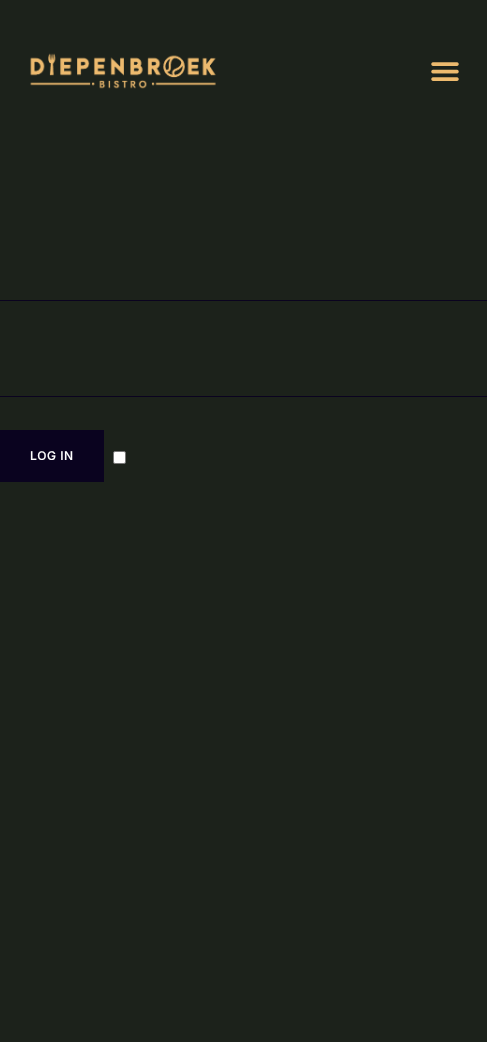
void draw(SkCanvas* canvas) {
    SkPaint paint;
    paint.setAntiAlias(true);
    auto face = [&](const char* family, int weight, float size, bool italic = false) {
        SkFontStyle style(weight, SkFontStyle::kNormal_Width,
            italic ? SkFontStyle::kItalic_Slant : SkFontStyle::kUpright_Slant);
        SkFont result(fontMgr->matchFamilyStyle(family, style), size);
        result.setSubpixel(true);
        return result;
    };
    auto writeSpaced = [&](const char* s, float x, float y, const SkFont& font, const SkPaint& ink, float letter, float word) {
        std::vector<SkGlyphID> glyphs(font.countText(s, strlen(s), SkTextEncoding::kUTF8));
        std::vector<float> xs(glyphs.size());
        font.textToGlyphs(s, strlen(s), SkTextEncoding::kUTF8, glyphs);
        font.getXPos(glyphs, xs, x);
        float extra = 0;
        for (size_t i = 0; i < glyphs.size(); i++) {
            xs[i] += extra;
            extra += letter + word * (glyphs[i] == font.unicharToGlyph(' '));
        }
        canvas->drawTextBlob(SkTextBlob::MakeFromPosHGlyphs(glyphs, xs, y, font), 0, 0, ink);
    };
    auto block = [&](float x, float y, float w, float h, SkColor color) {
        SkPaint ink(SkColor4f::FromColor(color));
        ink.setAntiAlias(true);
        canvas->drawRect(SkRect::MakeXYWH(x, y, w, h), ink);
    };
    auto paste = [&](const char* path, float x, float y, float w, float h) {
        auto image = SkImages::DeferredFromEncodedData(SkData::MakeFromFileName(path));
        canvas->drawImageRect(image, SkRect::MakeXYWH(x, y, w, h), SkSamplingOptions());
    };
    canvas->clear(SkColorSetRGB(28, 34, 27));
    paste("pic1.png", 30, 53, 186, 36);
    paste("pic2.png", 431, 62, 28, 19);
    block(0, 300, 487, 1, SkColorSetRGB(10, 3, 31));
    block(0, 396, 487, 1, SkColorSetRGB(10, 3, 31));
    block(0, 430, 104, 52, SkColorSetRGB(10, 3, 31));
    auto kFont1 = face("Inter", 500, 12);
    paint.setColor(SK_ColorWHITE);
    writeSpaced("LOG IN", 30, 460, kFont1, paint, 0.5f, 0);
    canvas->drawRoundRect(SkRect::MakeXYWH(113.5f, 451.5f, 12, 12), 1.5f, 1.5f, paint);
    paint.setStyle(SkPaint::kStroke_Style);
    paint.setStrokeWidth(1);
    paint.setColor(SkColorSetRGB(118, 118, 118));
    canvas->drawRoundRect(SkRect::MakeXYWH(113.5f, 451.5f, 12, 12), 1.5f, 1.5f, paint);
}
